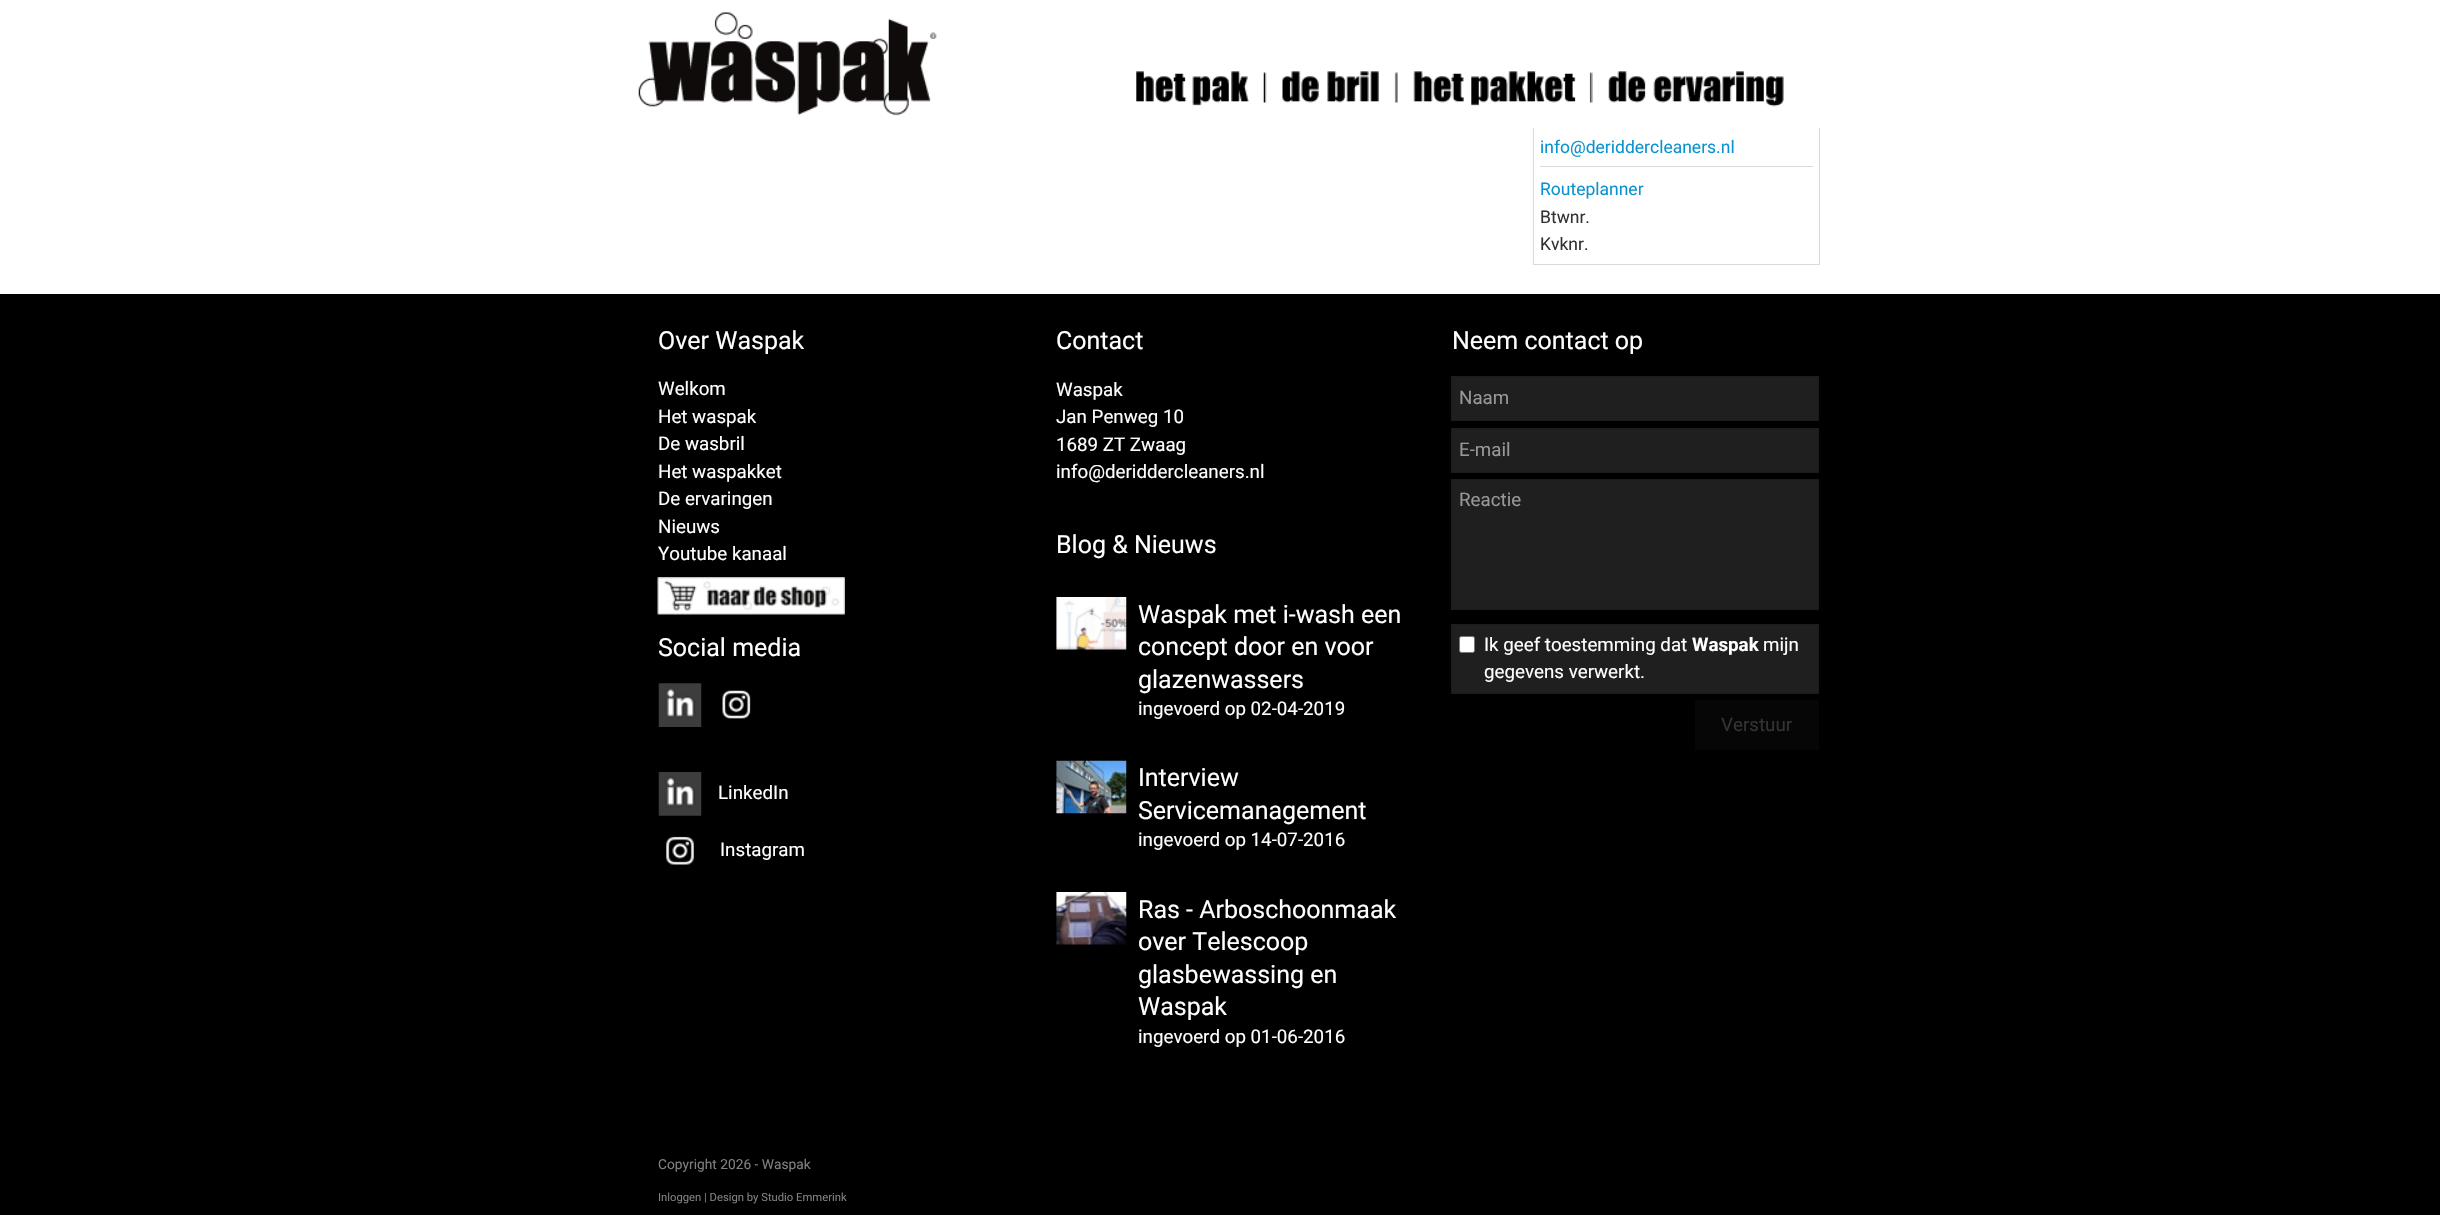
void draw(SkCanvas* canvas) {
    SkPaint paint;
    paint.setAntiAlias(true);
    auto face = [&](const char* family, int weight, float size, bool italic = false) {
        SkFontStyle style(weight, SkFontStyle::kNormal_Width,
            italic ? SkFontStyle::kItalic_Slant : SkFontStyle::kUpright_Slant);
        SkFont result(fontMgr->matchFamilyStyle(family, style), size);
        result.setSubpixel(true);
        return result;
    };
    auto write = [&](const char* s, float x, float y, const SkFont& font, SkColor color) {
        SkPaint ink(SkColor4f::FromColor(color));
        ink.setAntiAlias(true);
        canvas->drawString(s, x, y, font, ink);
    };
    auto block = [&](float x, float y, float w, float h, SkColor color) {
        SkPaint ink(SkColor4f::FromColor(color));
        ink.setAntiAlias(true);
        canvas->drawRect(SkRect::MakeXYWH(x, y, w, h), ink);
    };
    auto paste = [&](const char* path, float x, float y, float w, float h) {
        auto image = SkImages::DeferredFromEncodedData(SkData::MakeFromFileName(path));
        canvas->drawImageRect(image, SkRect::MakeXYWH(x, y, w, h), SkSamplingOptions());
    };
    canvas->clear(SK_ColorWHITE);
    paste("pic1.png", 638, 12, 299, 104);
    paste("pic2.png", 1136, 71, 113, 35);
    paste("pic3.png", 1263, 71, 134, 32);
    paste("pic4.png", 1396, 71, 196, 35);
    paste("pic5.png", 1591, 71, 193, 36);
    block(1819, 128, 1, 136, SkColorSetRGB(218, 218, 218));
    block(1533, 128, 1, 136, SkColorSetRGB(218, 218, 218));
    auto kFont1 = face("Roboto", 400, 17.5f);
    write("info@deriddercleaners.nl", 1540, 153, kFont1, SkColorSetRGB(12, 147, 207));
    block(1540, 166, 273, 1, SkColorSetRGB(218, 218, 218));
    write("Routeplanner", 1540, 195, kFont1, SkColorSetRGB(12, 147, 207));
    write("Btwnr.", 1540, 223, kFont1, SkColorSetRGB(51, 51, 51));
    write("Kvknr.", 1540, 250, kFont1, SkColorSetRGB(51, 51, 51));
    block(1533, 264, 287, 1, SkColorSetRGB(218, 218, 218));
    block(0, 294, 2440, 921, SK_ColorBLACK);
    auto kFont2 = face("Roboto", 400, 25);
    write("Over Waspak", 658, 349, kFont2, SK_ColorWHITE);
    auto kFont3 = face("Roboto", 400, 18.75f);
    write("Welkom", 658, 395, kFont3, SK_ColorWHITE);
    write("Het waspak", 658, 423, kFont3, SK_ColorWHITE);
    write("De wasbril", 658, 450, kFont3, SK_ColorWHITE);
    write("Het waspakket", 658, 478, kFont3, SK_ColorWHITE);
    write("De ervaringen", 658, 505, kFont3, SK_ColorWHITE);
    write("Nieuws", 658, 533, kFont3, SK_ColorWHITE);
    write("Youtube kanaal", 658, 560, kFont3, SK_ColorWHITE);
    paste("pic6.png", 657, 577, 188, 38);
    write("Social media", 658, 656, kFont2, SK_ColorWHITE);
    paste("pic7.png", 658, 683, 44, 44);
    paste("pic8.png", 722, 690, 29, 29);
    paste("pic9.png", 658, 772, 44, 44);
    write("LinkedIn", 718, 799, kFont3, SK_ColorWHITE);
    paste("pic10.png", 666, 836, 28, 29);
    write("Instagram", 720, 856, kFont3, SK_ColorWHITE);
    write("Contact", 1056, 349, kFont2, SK_ColorWHITE);
    write("Waspak", 1056, 396, kFont3, SK_ColorWHITE);
    write("Jan Penweg 10", 1056, 423, kFont3, SK_ColorWHITE);
    write("1689 ZT Zwaag", 1056, 451, kFont3, SK_ColorWHITE);
    write("info@deriddercleaners.nl", 1056, 478, kFont3, SK_ColorWHITE);
    write("Blog & Nieuws", 1056, 553, kFont2, SK_ColorWHITE);
    paste("pic11.png", 1056, 597, 71, 53);
    write("Waspak met i-wash een", 1138, 623, kFont2, SK_ColorWHITE);
    write("concept door en voor", 1138, 655, kFont2, SK_ColorWHITE);
    write("glazenwassers", 1138, 688, kFont2, SK_ColorWHITE);
    write("ingevoerd op 02-04-2019", 1138, 715, kFont3, SK_ColorWHITE);
    paste("pic12.png", 1056, 760, 71, 54);
    write("Interview", 1138, 786, kFont2, SK_ColorWHITE);
    write("Servicemanagement", 1138, 819, kFont2, SK_ColorWHITE);
    write("ingevoerd op 14-07-2016", 1138, 846, kFont3, SK_ColorWHITE);
    paste("pic13.png", 1056, 892, 71, 53);
    write("Ras - Arboschoonmaak", 1138, 918, kFont2, SK_ColorWHITE);
    write("over Telescoop", 1138, 950, kFont2, SK_ColorWHITE);
    write("glasbewassing en", 1138, 983, kFont2, SK_ColorWHITE);
    write("Waspak", 1138, 1015, kFont2, SK_ColorWHITE);
    write("ingevoerd op 01-06-2016", 1138, 1043, kFont3, SK_ColorWHITE);
    write("Neem contact op", 1452, 349, kFont2, SK_ColorWHITE);
    paint.setColor(SkColorSetRGB(31, 31, 31));
    canvas->drawRect(SkRect::MakeXYWH(1451.5f, 376.5f, 367, 44), paint);
    paint.setStyle(SkPaint::kStroke_Style);
    paint.setStrokeWidth(1);
    paint.setColor(SkColorSetRGB(28, 28, 28));
    canvas->drawRect(SkRect::MakeXYWH(1451.5f, 376.5f, 367, 44), paint);
    write("Naam", 1459, 404, kFont3, SkColorSetRGB(152, 152, 152));
    paint.setStyle(SkPaint::kFill_Style);
    paint.setColor(SkColorSetRGB(31, 31, 31));
    canvas->drawRect(SkRect::MakeXYWH(1451.5f, 428.5f, 367, 44), paint);
    paint.setStyle(SkPaint::kStroke_Style);
    paint.setColor(SkColorSetRGB(28, 28, 28));
    canvas->drawRect(SkRect::MakeXYWH(1451.5f, 428.5f, 367, 44), paint);
    write("E-mail", 1459, 456, kFont3, SkColorSetRGB(152, 152, 152));
    paint.setStyle(SkPaint::kFill_Style);
    paint.setColor(SkColorSetRGB(31, 31, 31));
    canvas->drawRect(SkRect::MakeXYWH(1451.5f, 479.5f, 367, 130), paint);
    paint.setStyle(SkPaint::kStroke_Style);
    paint.setColor(SkColorSetRGB(28, 28, 28));
    canvas->drawRect(SkRect::MakeXYWH(1451.5f, 479.5f, 367, 130), paint);
    write("Reactie", 1459, 506, kFont3, SkColorSetRGB(152, 152, 152));
    paint.setStyle(SkPaint::kFill_Style);
    paint.setColor(SkColorSetRGB(31, 31, 31));
    canvas->drawRect(SkRect::MakeXYWH(1451.5f, 624.5f, 367, 69), paint);
    paint.setStyle(SkPaint::kStroke_Style);
    paint.setColor(SkColorSetRGB(28, 28, 28));
    canvas->drawRect(SkRect::MakeXYWH(1451.5f, 624.5f, 367, 69), paint);
    paint.setStyle(SkPaint::kFill_Style);
    paint.setColor(SK_ColorWHITE);
    canvas->drawRoundRect(SkRect::MakeXYWH(1459.5f, 636.5f, 15, 16), 2, 2, paint);
    paint.setStyle(SkPaint::kStroke_Style);
    paint.setColor(SkColorSetRGB(118, 118, 118));
    canvas->drawRoundRect(SkRect::MakeXYWH(1459.5f, 636.5f, 15, 16), 2, 2, paint);
    write("Ik geef toestemming dat", 1484, 651, kFont3, SK_ColorWHITE);
    auto kFont4 = face("Roboto", 700, 18.75f);
    write("Waspak", 1692, 651, kFont4, SK_ColorWHITE);
    write("mijn", 1763, 651, kFont3, SK_ColorWHITE);
    write("gegevens verwerkt.", 1484, 678, kFont3, SK_ColorWHITE);
    block(1695, 700, 124, 50, SkColorSetRGB(6, 6, 6));
    write("Verstuur", 1721, 731, kFont3, SkColorSetRGB(51, 51, 51));
    auto kFont5 = face("Roboto", 400, 13.75f);
    write("Copyright 2026 - Waspak", 658, 1169, kFont5, SkColorSetRGB(128, 128, 128));
    auto kFont6 = face("Roboto", 400, 11.25f);
    write("Inloggen | Design by Studio Emmerink", 658, 1201, kFont6, SkColorSetRGB(128, 128, 128));
}
